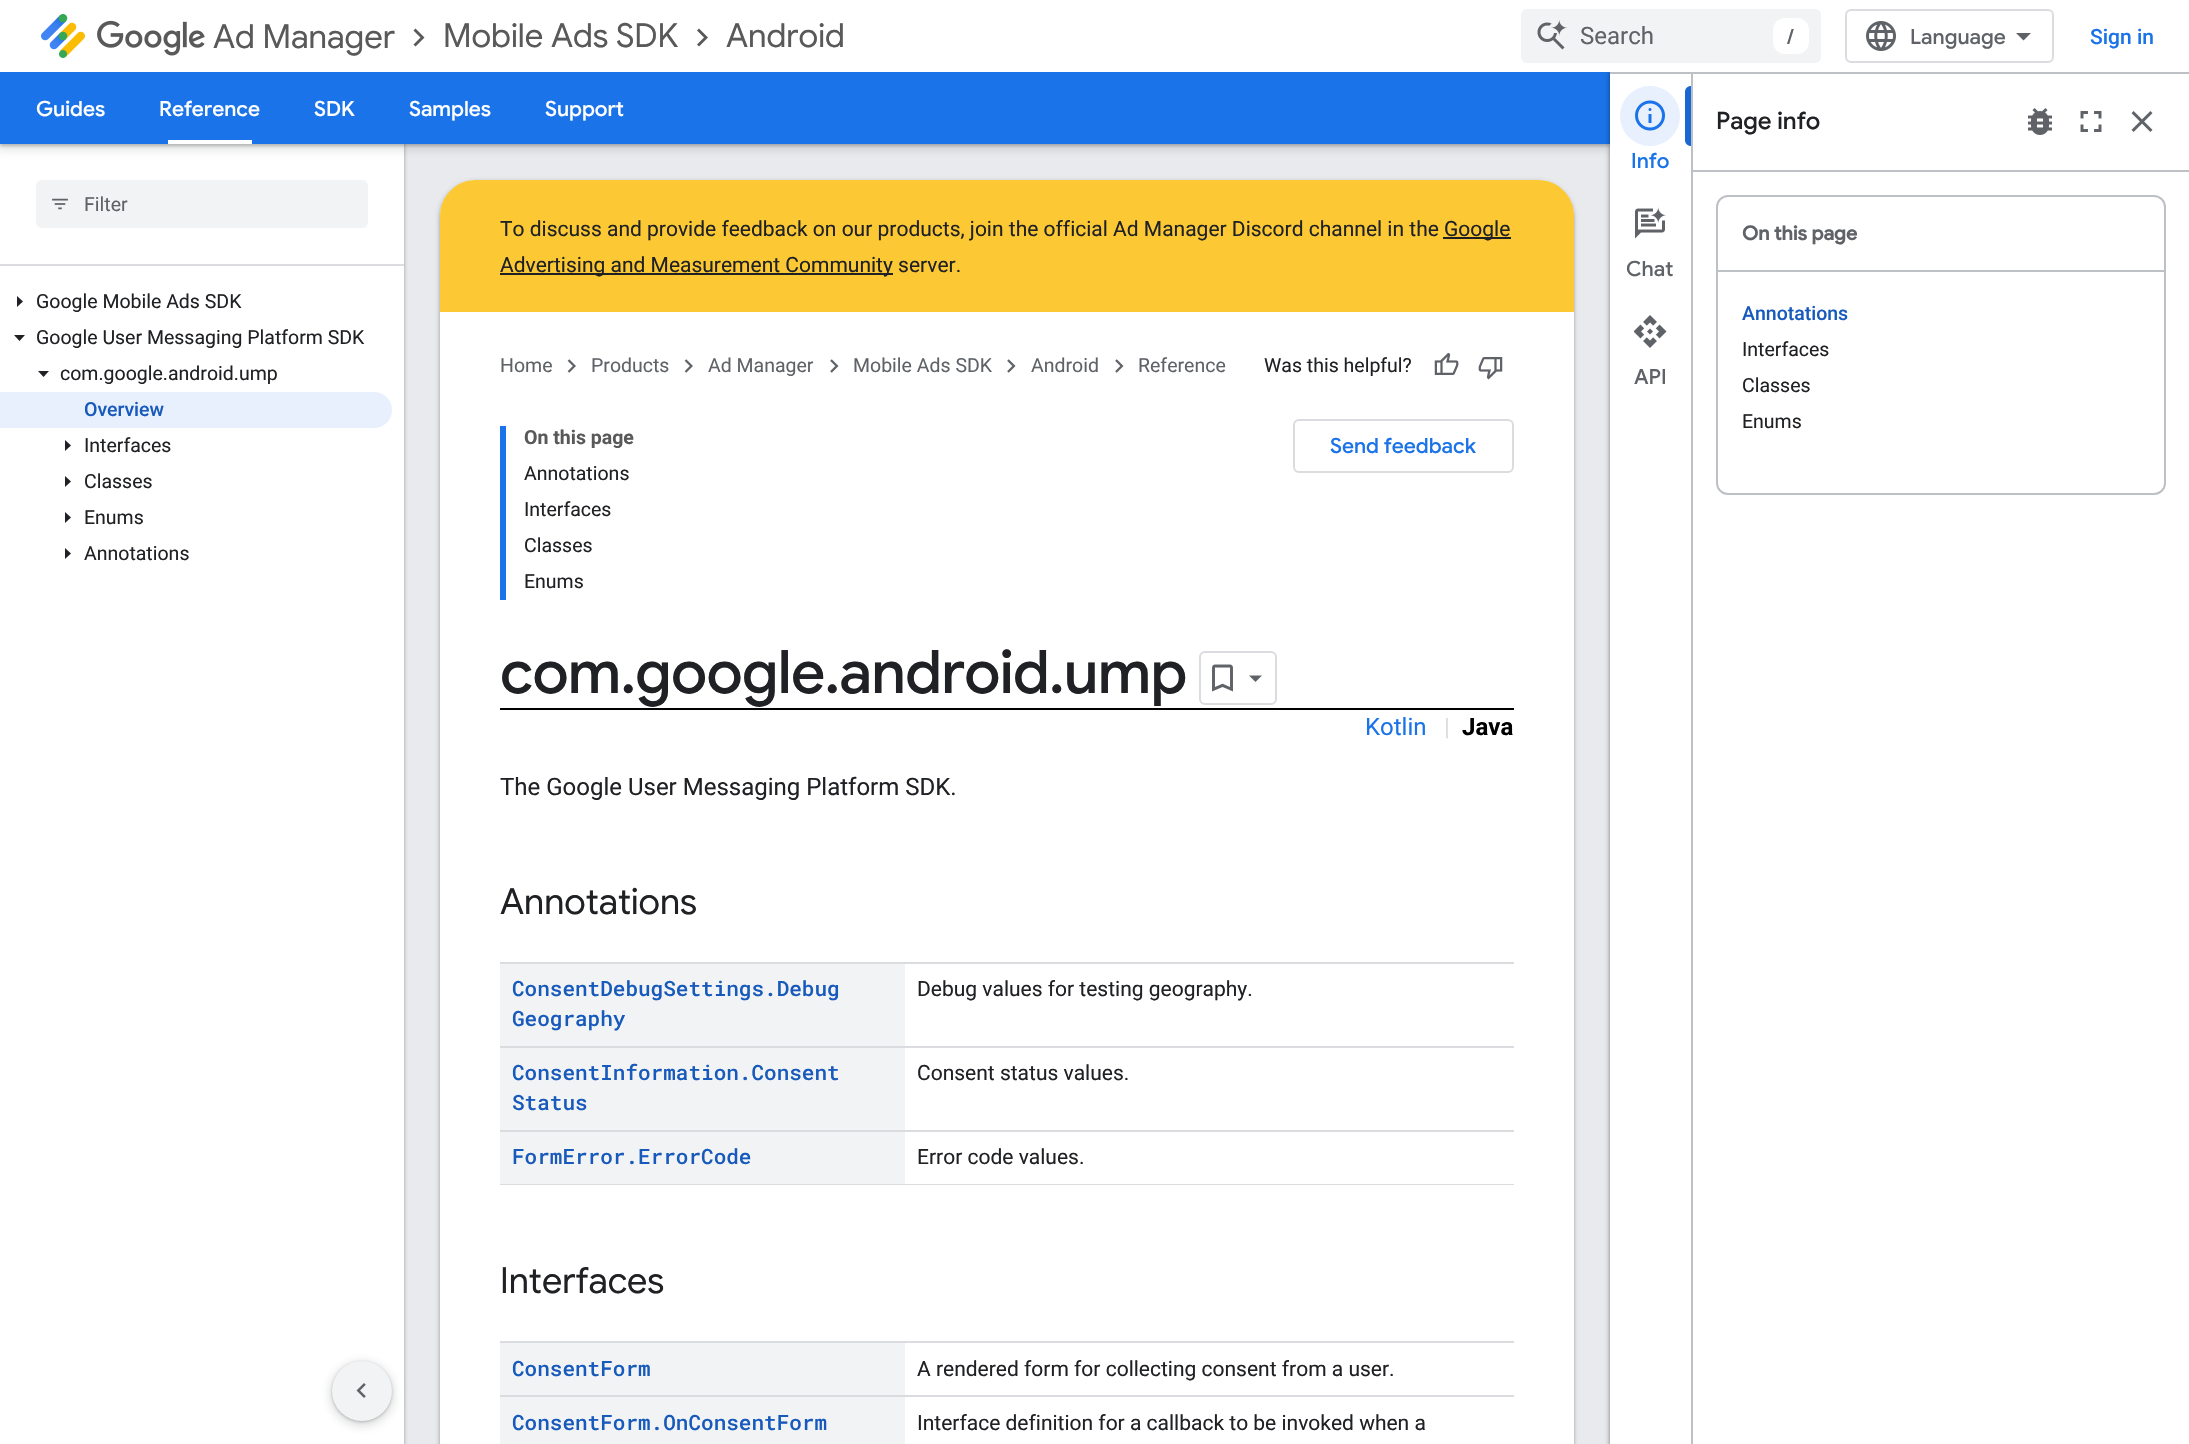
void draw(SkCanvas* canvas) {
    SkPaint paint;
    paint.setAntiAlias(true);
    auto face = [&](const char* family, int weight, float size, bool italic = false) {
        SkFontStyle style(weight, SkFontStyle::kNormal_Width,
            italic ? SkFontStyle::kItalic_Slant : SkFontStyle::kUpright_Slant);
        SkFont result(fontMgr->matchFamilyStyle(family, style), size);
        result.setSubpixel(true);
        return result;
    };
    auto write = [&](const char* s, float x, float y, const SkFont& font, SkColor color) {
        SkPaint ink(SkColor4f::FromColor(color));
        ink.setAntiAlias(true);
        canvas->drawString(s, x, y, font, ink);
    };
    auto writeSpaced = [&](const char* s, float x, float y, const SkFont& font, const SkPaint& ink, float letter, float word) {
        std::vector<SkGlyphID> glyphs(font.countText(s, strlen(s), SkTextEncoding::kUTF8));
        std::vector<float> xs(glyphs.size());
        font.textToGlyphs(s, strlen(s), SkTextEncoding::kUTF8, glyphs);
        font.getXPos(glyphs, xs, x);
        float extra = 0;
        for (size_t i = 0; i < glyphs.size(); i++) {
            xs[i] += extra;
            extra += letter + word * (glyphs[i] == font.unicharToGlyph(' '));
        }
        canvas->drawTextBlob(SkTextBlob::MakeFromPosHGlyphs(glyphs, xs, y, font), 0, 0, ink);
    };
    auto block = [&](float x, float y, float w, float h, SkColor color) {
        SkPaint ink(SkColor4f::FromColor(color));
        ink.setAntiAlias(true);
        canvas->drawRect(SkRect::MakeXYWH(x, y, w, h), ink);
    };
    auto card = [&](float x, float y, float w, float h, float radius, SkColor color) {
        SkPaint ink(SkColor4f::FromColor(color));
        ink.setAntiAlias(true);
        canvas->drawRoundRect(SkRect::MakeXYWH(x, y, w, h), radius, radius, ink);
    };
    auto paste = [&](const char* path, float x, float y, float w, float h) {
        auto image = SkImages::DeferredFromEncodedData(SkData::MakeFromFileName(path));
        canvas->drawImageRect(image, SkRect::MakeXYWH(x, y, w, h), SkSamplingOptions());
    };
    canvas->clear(SkColorSetRGB(232, 234, 237));
    paint.setColor(SkColorSetARGB(38, 60, 64, 67));
    paint.setMaskFilter(SkMaskFilter::MakeBlur(kNormal_SkBlurStyle, 2));
    canvas->drawRect(SkRect::MakeXYWH(-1, 0, 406, 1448), paint);
    paint.setMaskFilter(nullptr);
    paint.setColor(SkColorSetARGB(77, 60, 64, 67));
    paint.setMaskFilter(SkMaskFilter::MakeBlur(kNormal_SkBlurStyle, 1.5f));
    canvas->drawRect(SkRect::MakeXYWH(0, 2, 404, 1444), paint);
    paint.setMaskFilter(nullptr);
    block(0, 144, 404, 1300, SK_ColorWHITE);
    paint.setColor(SkColorSetARGB(38, 60, 64, 67));
    paint.setMaskFilter(SkMaskFilter::MakeBlur(kNormal_SkBlurStyle, 4.5f));
    canvas->drawRect(SkRect::MakeXYWH(-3, 72, 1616, 78), paint);
    paint.setMaskFilter(nullptr);
    paint.setColor(SkColorSetARGB(77, 60, 64, 67));
    paint.setMaskFilter(SkMaskFilter::MakeBlur(kNormal_SkBlurStyle, 1.5f));
    canvas->drawRect(SkRect::MakeXYWH(0, 74, 1610, 72), paint);
    paint.setMaskFilter(nullptr);
    block(0, 72, 1610, 72, SkColorSetRGB(26, 115, 232));
    paint.setColor(SkColorSetARGB(38, 0, 0, 0));
    paint.setMaskFilter(SkMaskFilter::MakeBlur(kNormal_SkBlurStyle, 2));
    canvas->drawRect(SkRect::MakeXYWH(1608, 72, 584, 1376), paint);
    paint.setMaskFilter(nullptr);
    paint.setColor(SkColorSetARGB(77, 0, 0, 0));
    paint.setMaskFilter(SkMaskFilter::MakeBlur(kNormal_SkBlurStyle, 1.5f));
    canvas->drawRect(SkRect::MakeXYWH(1610, 74, 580, 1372), paint);
    paint.setMaskFilter(nullptr);
    block(0, 0, 2189, 72, SK_ColorWHITE);
    paste("pic1.png", 41, 14, 44, 44);
    paste("pic2.png", 97, 20, 108, 36);
    auto kFont1 = face("Google Sans", 400, 33);
    write("Ad Manager", 213, 48, kFont1, SkColorSetRGB(89, 89, 89));
    paint.setColor(SkColorSetRGB(89, 89, 89));
    canvas->drawPath(SkPathBuilder().moveTo(415.5f, 28.5f).lineTo(424.5f, 37.5f).lineTo(415.5f, 46.5f).lineTo(413.5f, 44.5f).lineTo(420.5f, 37.5f).lineTo(413.5f, 30.5f).close().detach(), paint);
    write("Mobile Ads SDK", 443, 47, kFont1, SkColorSetRGB(89, 89, 89));
    canvas->drawPath(SkPathBuilder().moveTo(699, 28.5f).lineTo(708, 37.5f).lineTo(699, 46.5f).lineTo(697, 44.5f).lineTo(704, 37.5f).lineTo(697, 30.5f).close().detach(), paint);
    write("Android", 726, 47, kFont1, SkColorSetRGB(89, 89, 89));
    card(1521, 9, 300, 54, 6, SkColorSetRGB(241, 243, 244));
    paste("pic3.png", 1537, 20, 30, 30);
    auto kFont2 = face("Roboto", 400, 24);
    write("Search", 1580, 44, kFont2, SkColorSetRGB(95, 99, 104));
    card(1773, 18, 36, 36, 12, SK_ColorWHITE);
    auto kFont3 = face("Google Sans", 500, 21);
    write("/", 1787, 44, kFont3, SkColorSetRGB(95, 99, 104));
    paint.setStyle(SkPaint::kStroke_Style);
    paint.setStrokeWidth(2);
    paint.setColor(SkColorSetRGB(218, 220, 224));
    canvas->drawRoundRect(SkRect::MakeXYWH(1846, 10, 207, 52), 5, 5, paint);
    paste("pic4.png", 1866, 21, 30, 30);
    write("Language", 1910, 44, kFont3, SkColorSetRGB(95, 99, 104));
    paint.setStyle(SkPaint::kFill_Style);
    paint.setColor(SkColorSetRGB(95, 99, 104));
    canvas->drawPath(SkPathBuilder().moveTo(2023.5f, 40.5f).lineTo(2016, 33).lineTo(2031, 33).close().detach(), paint);
    auto kFont4 = face("Roboto", 500, 21);
    write("Sign in", 2090, 44, kFont4, SkColorSetRGB(26, 115, 232));
    write("Guides", 36, 116, kFont3, SK_ColorWHITE);
    write("Reference", 159, 116, kFont3, SK_ColorWHITE);
    block(168, 140, 84, 4, SK_ColorWHITE);
    write("SDK", 314, 116, kFont3, SK_ColorWHITE);
    write("Samples", 409, 116, kFont3, SK_ColorWHITE);
    write("Support", 545, 116, kFont3, SK_ColorWHITE);
    block(0, 264, 404, 2, SkColorSetRGB(218, 220, 224));
    card(36, 180, 332, 48, 6, SkColorSetRGB(241, 243, 244));
    paste("pic5.png", 52, 198, 16, 12);
    auto kFont5 = face("Roboto", 400, 19.5f);
    write("Filter", 84, 211, kFont5, SkColorSetRGB(95, 99, 104));
    paint.setColor(SkColorSetRGB(32, 33, 36));
    canvas->drawPath(SkPathBuilder().moveTo(17, 307).lineTo(17, 296).lineTo(23, 301.5f).close().detach(), paint);
    write("Google Mobile Ads SDK", 36, 308, kFont5, SkColorSetRGB(32, 33, 36));
    canvas->drawPath(SkPathBuilder().moveTo(14, 335).lineTo(25, 335).lineTo(19.5f, 341).close().detach(), paint);
    write("Google User Messaging Platform SDK", 36, 344, kFont5, SkColorSetRGB(32, 33, 36));
    canvas->drawPath(SkPathBuilder().moveTo(38, 371).lineTo(49, 371).lineTo(43.5f, 377).close().detach(), paint);
    write("com.google.android.ump", 60, 380, kFont5, SkColorSetRGB(32, 33, 36));
    paint.setColor(SkColorSetRGB(232, 240, 254));
    canvas->drawPath(SkPathBuilder().moveTo(0, 392).lineTo(374, 392).cubicTo(384, 392, 392, 400, 392, 410).cubicTo(392, 420, 384, 428, 374, 428).lineTo(0, 428).close().detach(), paint);
    auto kFont6 = face("Roboto", 500, 19.5f);
    write("Overview", 84, 416, kFont6, SkColorSetRGB(24, 90, 188));
    paint.setColor(SkColorSetRGB(32, 33, 36));
    canvas->drawPath(SkPathBuilder().moveTo(65, 451).lineTo(65, 440).lineTo(71, 445.5f).close().detach(), paint);
    write("Interfaces", 84, 452, kFont5, SkColorSetRGB(32, 33, 36));
    canvas->drawPath(SkPathBuilder().moveTo(65, 487).lineTo(65, 476).lineTo(71, 481.5f).close().detach(), paint);
    write("Classes", 84, 488, kFont5, SkColorSetRGB(32, 33, 36));
    canvas->drawPath(SkPathBuilder().moveTo(65, 523).lineTo(65, 512).lineTo(71, 517.5f).close().detach(), paint);
    write("Enums", 84, 524, kFont5, SkColorSetRGB(32, 33, 36));
    canvas->drawPath(SkPathBuilder().moveTo(65, 559).lineTo(65, 548).lineTo(71, 553.5f).close().detach(), paint);
    write("Annotations", 84, 560, kFont5, SkColorSetRGB(32, 33, 36));
    paint.setColor(SkColorSetARGB(38, 60, 64, 67));
    paint.setMaskFilter(SkMaskFilter::MakeBlur(kNormal_SkBlurStyle, 2));
    canvas->drawRoundRect(SkRect::MakeXYWH(438, 180, 1137, 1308), 38, 38, paint);
    paint.setMaskFilter(nullptr);
    paint.setColor(SkColorSetARGB(77, 60, 64, 67));
    paint.setMaskFilter(SkMaskFilter::MakeBlur(kNormal_SkBlurStyle, 1.5f));
    canvas->drawRoundRect(SkRect::MakeXYWH(440, 182, 1134, 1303), 36, 36, paint);
    paint.setMaskFilter(nullptr);
    card(440, 180, 1134, 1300, 36, SK_ColorWHITE);
    paint.setColor(SkColorSetRGB(252, 201, 52));
    canvas->drawPath(SkPathBuilder().moveTo(476, 180).lineTo(1538, 180).cubicTo(1558, 180, 1574, 196, 1574, 216).lineTo(1574, 312).lineTo(440, 312).lineTo(440, 216).cubicTo(440, 196, 456, 180, 476, 180).close().detach(), paint);
    auto kFont7 = face("Roboto", 400, 21);
    write("To discuss and provide feedback on our products, join the official Ad Manager Discord channel in the", 500, 236, kFont7, SkColorSetRGB(32, 33, 36));
    block(1443, 237, 68, 2, SkColorSetRGB(32, 33, 36));
    write("Google", 1444, 236, kFont7, SkColorSetRGB(32, 33, 36));
    block(500, 273, 393, 2, SkColorSetRGB(32, 33, 36));
    write("Advertising and Measurement Community server.", 500, 272, kFont7, SkColorSetRGB(32, 33, 36));
    write("Home", 500, 372, kFont5, SkColorSetRGB(95, 99, 104));
    paste("pic6.png", 567, 359, 9, 14);
    write("Products", 591, 372, kFont5, SkColorSetRGB(95, 99, 104));
    paste("pic6.png", 684, 359, 9, 14);
    write("Ad Manager", 708, 372, kFont5, SkColorSetRGB(95, 99, 104));
    paste("pic7.png", 830, 359, 9, 14);
    write("Mobile Ads SDK", 853, 372, kFont5, SkColorSetRGB(95, 99, 104));
    paste("pic7.png", 1007, 359, 9, 14);
    write("Android", 1031, 372, kFont5, SkColorSetRGB(95, 99, 104));
    paste("pic7.png", 1115, 359, 9, 14);
    write("Reference", 1138, 372, kFont5, SkColorSetRGB(95, 99, 104));
    write("Was this helpful?", 1264, 372, kFont5, SkColorSetRGB(32, 33, 36));
    paste("pic8.png", 1434, 353, 25, 22);
    paste("pic9.png", 1478, 357, 25, 23);
    block(500, 426, 6, 174, SkColorSetRGB(26, 115, 232));
    auto kFont8 = face("Roboto", 700, 19.5f);
    write("On this page", 524, 444, kFont8, SkColorSetRGB(89, 89, 89));
    write("Annotations", 524, 480, kFont5, SkColorSetRGB(32, 33, 36));
    write("Interfaces", 524, 516, kFont5, SkColorSetRGB(32, 33, 36));
    write("Classes", 524, 552, kFont5, SkColorSetRGB(32, 33, 36));
    write("Enums", 524, 588, kFont5, SkColorSetRGB(32, 33, 36));
    paint.setStyle(SkPaint::kStroke_Style);
    paint.setColor(SkColorSetRGB(218, 220, 224));
    canvas->drawRoundRect(SkRect::MakeXYWH(1294, 420, 219, 52), 5, 5, paint);
    write("Send feedback", 1330, 453, kFont3, SkColorSetRGB(26, 115, 232));
    auto kFont9 = face("Google Sans", 500, 60);
    paint.setStyle(SkPaint::kFill_Style);
    paint.setColor(SkColorSetRGB(32, 33, 36));
    writeSpaced("com.google.android.ump", 500, 693, kFont9, paint, -0.75f, 0);
    paint.setStyle(SkPaint::kStroke_Style);
    paint.setColor(SkColorSetRGB(218, 220, 224));
    canvas->drawRoundRect(SkRect::MakeXYWH(1200, 652, 76, 52), 5, 5, paint);
    paste("pic10.png", 1212, 664, 21, 28);
    paint.setStyle(SkPaint::kFill_Style);
    paint.setColor(SkColorSetRGB(95, 99, 104));
    canvas->drawPath(SkPathBuilder().moveTo(1249, 675.5f).lineTo(1262, 675.5f).lineTo(1255.5f, 682).close().detach(), paint);
    block(500, 708, 1014, 2, SK_ColorBLACK);
    write("Kotlin", 1365, 735, kFont2, SkColorSetRGB(26, 115, 232));
    write("|", 1444, 735, kFont2, SkColorSetRGB(221, 221, 221));
    auto kFont10 = face("Roboto", 700, 24);
    write("Java", 1462, 735, kFont10, SK_ColorBLACK);
    write("The Google User Messaging Platform SDK.", 500, 795, kFont2, SkColorSetRGB(32, 33, 36));
    auto kFont11 = face("Google Sans", 400, 36);
    write("Annotations", 500, 914, kFont11, SkColorSetRGB(32, 33, 36));
    block(500, 962, 1014, 2, SkColorSetRGB(218, 220, 224));
    block(500, 1046, 1014, 2, SkColorSetRGB(218, 220, 224));
    block(500, 964, 405, 82, SkColorSetRGB(241, 243, 244));
    auto kFont12 = face("Roboto Mono", 500, 21);
    write("ConsentDebugSettings.Debug", 512, 996, kFont12, SkColorSetRGB(24, 90, 188));
    write("Geography", 512, 1026, kFont12, SkColorSetRGB(24, 90, 188));
    write("Debug values for testing geography.", 917, 996, kFont7, SkColorSetRGB(32, 33, 36));
    block(500, 1130, 1014, 2, SkColorSetRGB(218, 220, 224));
    block(500, 1048, 405, 82, SkColorSetRGB(241, 243, 244));
    write("ConsentInformation.Consent", 512, 1080, kFont12, SkColorSetRGB(24, 90, 188));
    write("Status", 512, 1110, kFont12, SkColorSetRGB(24, 90, 188));
    write("Consent status values.", 917, 1080, kFont7, SkColorSetRGB(32, 33, 36));
    block(500, 1184, 1014, 1, SkColorSetRGB(218, 220, 224));
    block(500, 1132, 405, 52, SkColorSetRGB(241, 243, 244));
    write("FormError.ErrorCode", 512, 1164, kFont12, SkColorSetRGB(24, 90, 188));
    write("Error code values.", 917, 1164, kFont7, SkColorSetRGB(32, 33, 36));
    write("Interfaces", 500, 1293, kFont11, SkColorSetRGB(32, 33, 36));
    block(500, 1341, 1014, 2, SkColorSetRGB(218, 220, 224));
    block(500, 1395, 1014, 2, SkColorSetRGB(218, 220, 224));
    block(500, 1343, 405, 52, SkColorSetRGB(241, 243, 244));
    write("ConsentForm", 512, 1376, kFont12, SkColorSetRGB(24, 90, 188));
    write("A rendered form for collecting consent from a user.", 917, 1376, kFont7, SkColorSetRGB(32, 33, 36));
    block(500, 1397, 405, 47, SkColorSetRGB(241, 243, 244));
    write("ConsentForm.OnConsentForm", 512, 1430, kFont12, SkColorSetRGB(24, 90, 188));
    write("Interface definition for a callback to be invoked when a", 917, 1430, kFont7, SkColorSetRGB(32, 33, 36));
    block(1610, 74, 579, 1370, SK_ColorWHITE);
    block(1610, 72, 579, 2, SkColorSetRGB(189, 193, 198));
    paint.setColor(SkColorSetRGB(232, 240, 254));
    canvas->drawCircle(1650, 116, 30, paint);
    paste("pic11.png", 1635, 100, 30, 31);
    paint.setColor(SkColorSetRGB(25, 103, 210));
    canvas->drawPath(SkPathBuilder().moveTo(1691, 86).lineTo(1691, 146).cubicTo(1687.5f, 146, 1685, 143.5f, 1685, 140).lineTo(1685, 92).cubicTo(1685, 88.5f, 1687.5f, 86, 1691, 86).close().detach(), paint);
    write("Info", 1631, 168, kFont3, SkColorSetRGB(26, 115, 232));
    paste("pic12.png", 1635, 207, 31, 32);
    write("Chat", 1626, 276, kFont3, SkColorSetRGB(95, 99, 104));
    paste("pic13.png", 1634, 315, 33, 33);
    write("API", 1634, 384, kFont3, SkColorSetRGB(95, 99, 104));
    block(1691, 72, 2, 1372, SkColorSetRGB(189, 193, 198));
    block(1692, 170, 497, 2, SkColorSetRGB(189, 193, 198));
    auto kFont13 = face("Google Sans", 500, 24);
    write("Page info", 1716, 129, kFont13, SkColorSetRGB(32, 33, 36));
    paste("pic14.png", 2028, 108, 24, 27);
    paste("pic15.png", 2080, 111, 22, 21);
    paste("pic16.png", 2131, 111, 22, 21);
    paint.setStyle(SkPaint::kStroke_Style);
    paint.setColor(SkColorSetRGB(189, 193, 198));
    canvas->drawRoundRect(SkRect::MakeXYWH(1717, 196, 448, 298), 11, 11, paint);
    block(1718, 270, 447, 2, SkColorSetRGB(189, 193, 198));
    auto kFont14 = face("Google Sans", 700, 19.5f);
    write("On this page", 1742, 240, kFont14, SkColorSetRGB(95, 99, 104));
    write("Annotations", 1742, 320, kFont6, SkColorSetRGB(24, 90, 188));
    write("Interfaces", 1742, 356, kFont5, SkColorSetRGB(32, 33, 36));
    write("Classes", 1742, 392, kFont5, SkColorSetRGB(32, 33, 36));
    write("Enums", 1742, 428, kFont5, SkColorSetRGB(32, 33, 36));
    paint.setStyle(SkPaint::kFill_Style);
    paint.setColor(SkColorSetARGB(38, 60, 64, 67));
    paint.setMaskFilter(SkMaskFilter::MakeBlur(kNormal_SkBlurStyle, 4.5f));
    canvas->drawRoundRect(SkRect::MakeXYWH(329, 1361, 66, 66), 33, 33, paint);
    paint.setMaskFilter(nullptr);
    paint.setColor(SkColorSetARGB(77, 60, 64, 67));
    paint.setMaskFilter(SkMaskFilter::MakeBlur(kNormal_SkBlurStyle, 1.5f));
    canvas->drawRoundRect(SkRect::MakeXYWH(332, 1362, 60, 60), 30, 30, paint);
    paint.setMaskFilter(nullptr);
    paint.setColor(SkColorSetRGB(241, 243, 244));
    canvas->drawCircle(362, 1391, 30, paint);
    paste("pic17.png", 356, 1383, 10, 15);
}
